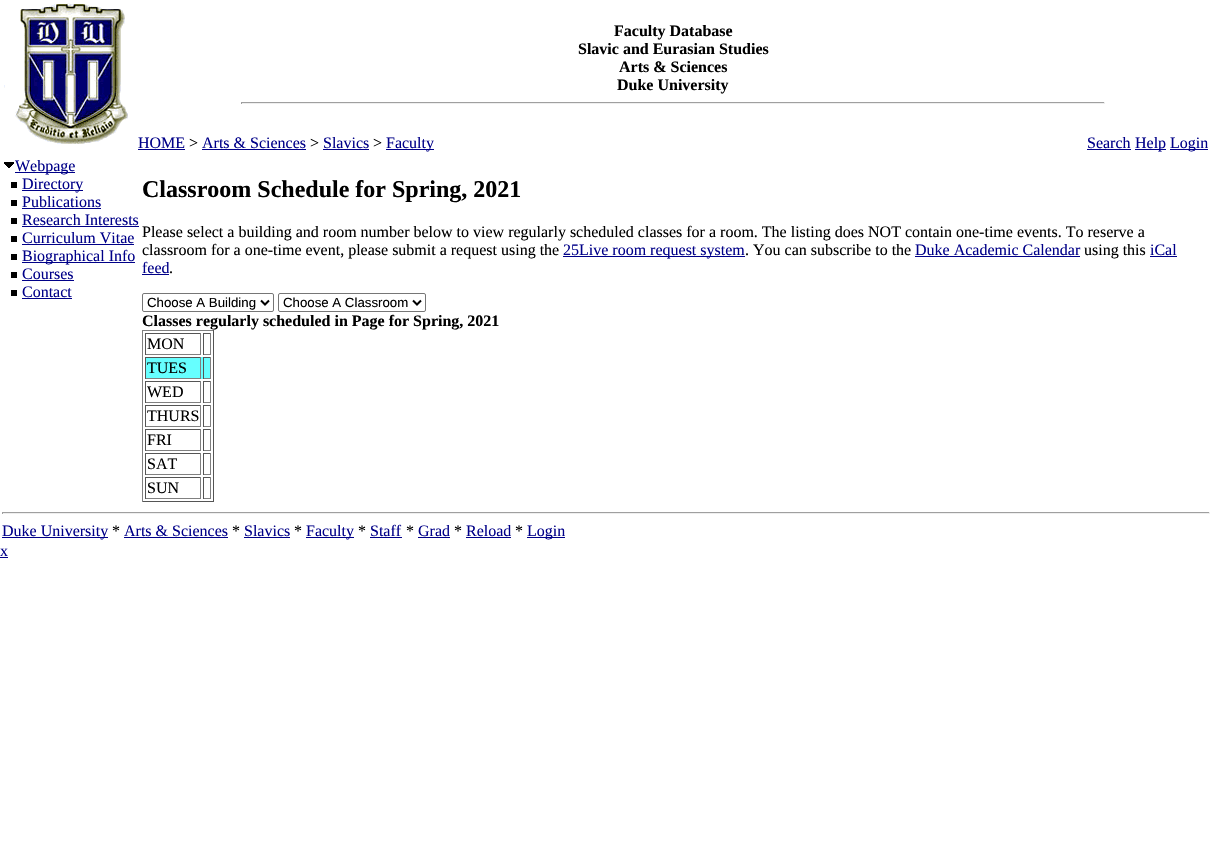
void draw(SkCanvas* canvas) {
    SkPaint paint;
    paint.setAntiAlias(true);
    auto face = [&](const char* family, int weight, float size, bool italic = false) {
        SkFontStyle style(weight, SkFontStyle::kNormal_Width,
            italic ? SkFontStyle::kItalic_Slant : SkFontStyle::kUpright_Slant);
        SkFont result(fontMgr->matchFamilyStyle(family, style), size);
        result.setSubpixel(true);
        return result;
    };
    auto write = [&](const char* s, float x, float y, const SkFont& font, SkColor color) {
        SkPaint ink(SkColor4f::FromColor(color));
        ink.setAntiAlias(true);
        canvas->drawString(s, x, y, font, ink);
    };
    auto block = [&](float x, float y, float w, float h, SkColor color) {
        SkPaint ink(SkColor4f::FromColor(color));
        ink.setAntiAlias(true);
        canvas->drawRect(SkRect::MakeXYWH(x, y, w, h), ink);
    };
    auto paste = [&](const char* path, float x, float y, float w, float h) {
        auto image = SkImages::DeferredFromEncodedData(SkData::MakeFromFileName(path));
        canvas->drawImageRect(image, SkRect::MakeXYWH(x, y, w, h), SkSamplingOptions());
    };
    canvas->clear(SK_ColorWHITE);
    paste("pic1.png", 4, 3, 124, 141);
    auto kFont1 = face("Liberation Serif", 700, 16);
    write("Faculty Database", 614, 36, kFont1, SK_ColorBLACK);
    write("Slavic and Eurasian Studies", 578, 54, kFont1, SK_ColorBLACK);
    write("Arts & Sciences", 619, 72, kFont1, SK_ColorBLACK);
    write("Duke University", 617, 90, kFont1, SK_ColorBLACK);
    block(241, 102, 864, 1, SkColorSetRGB(159, 159, 159));
    block(1104, 102, 1, 2, SkColorSetRGB(238, 238, 238));
    block(241, 103, 864, 1, SkColorSetRGB(238, 238, 238));
    block(241, 102, 1, 2, SkColorSetRGB(159, 159, 159));
    auto kFont2 = face("Liberation Serif", 400, 16);
    write("HOME", 138, 148, kFont2, SkColorSetRGB(0, 0, 136));
    block(138, 149, 47, 1, SkColorSetRGB(0, 0, 136));
    write(">", 189, 148, kFont2, SK_ColorBLACK);
    write("Arts & Sciences", 202, 148, kFont2, SkColorSetRGB(0, 0, 136));
    block(202, 149, 104, 1, SkColorSetRGB(0, 0, 136));
    write(">", 310, 148, kFont2, SK_ColorBLACK);
    write("Slavics", 323, 148, kFont2, SkColorSetRGB(0, 0, 136));
    block(323, 149, 46, 1, SkColorSetRGB(0, 0, 136));
    write(">", 373, 148, kFont2, SK_ColorBLACK);
    block(386, 149, 48, 1, SkColorSetRGB(0, 0, 136));
    write("Faculty", 386, 148, kFont2, SkColorSetRGB(0, 0, 136));
    write("Search", 1087, 148, kFont2, SkColorSetRGB(0, 0, 136));
    block(1087, 149, 44, 1, SkColorSetRGB(0, 0, 136));
    block(1135, 149, 31, 1, SkColorSetRGB(0, 0, 136));
    write("Help", 1135, 148, kFont2, SkColorSetRGB(0, 0, 136));
    block(1170, 149, 38, 1, SkColorSetRGB(0, 0, 136));
    write("Login", 1170, 148, kFont2, SkColorSetRGB(0, 0, 136));
    paste("pic2.png", 4, 162, 10, 6);
    block(15, 172, 60, 1, SkColorSetRGB(0, 0, 136));
    write("Webpage", 15, 171, kFont2, SkColorSetRGB(0, 0, 136));
    block(11, 182, 6, 6, SK_ColorBLACK);
    block(22, 190, 61, 1, SkColorSetRGB(0, 0, 136));
    write("Directory", 22, 189, kFont2, SkColorSetRGB(0, 0, 136));
    block(11, 200, 6, 6, SK_ColorBLACK);
    write("Publications", 22, 207, kFont2, SkColorSetRGB(0, 0, 136));
    block(22, 208, 79, 1, SkColorSetRGB(0, 0, 136));
    block(11, 218, 6, 6, SK_ColorBLACK);
    write("Research Interests", 22, 225, kFont2, SkColorSetRGB(0, 0, 136));
    block(22, 226, 117, 1, SkColorSetRGB(0, 0, 136));
    block(11, 236, 6, 6, SK_ColorBLACK);
    write("Curriculum Vitae", 22, 243, kFont2, SkColorSetRGB(0, 0, 136));
    block(22, 244, 112, 1, SkColorSetRGB(0, 0, 136));
    block(11, 254, 6, 6, SK_ColorBLACK);
    block(22, 262, 113, 1, SkColorSetRGB(0, 0, 136));
    write("Biographical Info", 22, 261, kFont2, SkColorSetRGB(0, 0, 136));
    block(11, 272, 6, 6, SK_ColorBLACK);
    write("Courses", 22, 279, kFont2, SkColorSetRGB(0, 0, 136));
    block(22, 280, 52, 1, SkColorSetRGB(0, 0, 136));
    block(11, 290, 6, 6, SK_ColorBLACK);
    write("Contact", 22, 297, kFont2, SkColorSetRGB(0, 0, 136));
    block(22, 298, 50, 1, SkColorSetRGB(0, 0, 136));
    auto kFont3 = face("Liberation Serif", 700, 24);
    write("Classroom Schedule for Spring, 2021", 142, 197, kFont3, SK_ColorBLACK);
    write("Please select a building and room number below to view regularly scheduled classes for a room. The listing does NOT contain one-time events. To reserve a", 142, 237, kFont2, SK_ColorBLACK);
    write("classroom for a one-time event, please submit a request using the", 142, 255, kFont2, SK_ColorBLACK);
    block(563, 256, 182, 1, SkColorSetRGB(0, 0, 136));
    write("25Live room request system", 563, 255, kFont2, SkColorSetRGB(0, 0, 136));
    write(". You can subscribe to the", 745, 255, kFont2, SK_ColorBLACK);
    write("Duke Academic Calendar", 915, 255, kFont2, SkColorSetRGB(0, 0, 136));
    block(915, 256, 165, 1, SkColorSetRGB(0, 0, 136));
    write("using this", 1084, 255, kFont2, SK_ColorBLACK);
    write("iCal", 1150, 255, kFont2, SkColorSetRGB(0, 0, 136));
    block(1150, 256, 27, 1, SkColorSetRGB(0, 0, 136));
    write("feed", 142, 273, kFont2, SkColorSetRGB(0, 0, 136));
    block(142, 274, 27, 1, SkColorSetRGB(0, 0, 136));
    write(".", 169, 273, kFont2, SK_ColorBLACK);
    paint.setStyle(SkPaint::kStroke_Style);
    paint.setStrokeWidth(1);
    paint.setColor(SkColorSetRGB(118, 118, 118));
    canvas->drawRoundRect(SkRect::MakeXYWH(142.5f, 293.5f, 131, 18), 1.5f, 1.5f, paint);
    paint.setStrokeWidth(2);
    paint.setColor(SK_ColorBLACK);
    canvas->drawPath(SkPathBuilder().moveTo(261, 300.5f).lineTo(265, 304.5f).lineTo(269, 300.5f).detach(), paint);
    auto kFont4 = face("Liberation Sans", 400, 13.25f);
    write("Choose A Building", 147, 307, kFont4, SK_ColorBLACK);
    paint.setStrokeWidth(1);
    paint.setColor(SkColorSetRGB(118, 118, 118));
    canvas->drawRoundRect(SkRect::MakeXYWH(278.5f, 293.5f, 147, 18), 1.5f, 1.5f, paint);
    paint.setStrokeWidth(2);
    paint.setColor(SK_ColorBLACK);
    canvas->drawPath(SkPathBuilder().moveTo(413, 300.5f).lineTo(417, 304.5f).lineTo(421, 300.5f).detach(), paint);
    write("Choose A Classroom", 283, 307, kFont4, SK_ColorBLACK);
    write("Classes regularly scheduled in Page for Spring, 2021", 142, 326, kFont1, SK_ColorBLACK);
    block(142, 330, 72, 1, SkColorSetRGB(128, 128, 128));
    block(213, 330, 1, 172, SkColorSetRGB(85, 85, 85));
    block(142, 501, 72, 1, SkColorSetRGB(85, 85, 85));
    block(142, 330, 1, 172, SkColorSetRGB(128, 128, 128));
    block(145, 333, 56, 1, SkColorSetRGB(85, 85, 85));
    block(200, 333, 1, 22, SkColorSetRGB(128, 128, 128));
    block(145, 354, 56, 1, SkColorSetRGB(128, 128, 128));
    block(145, 333, 1, 22, SkColorSetRGB(85, 85, 85));
    write("MON", 147, 349, kFont2, SK_ColorBLACK);
    block(203, 333, 8, 1, SkColorSetRGB(85, 85, 85));
    block(210, 333, 1, 22, SkColorSetRGB(128, 128, 128));
    block(203, 354, 8, 1, SkColorSetRGB(128, 128, 128));
    block(203, 333, 1, 22, SkColorSetRGB(85, 85, 85));
    block(146, 357, 64, 22, SkColorSetRGB(102, 255, 255));
    block(145, 357, 56, 1, SkColorSetRGB(85, 85, 85));
    block(200, 357, 1, 22, SkColorSetRGB(128, 128, 128));
    block(145, 378, 56, 1, SkColorSetRGB(128, 128, 128));
    block(145, 357, 1, 22, SkColorSetRGB(85, 85, 85));
    write("TUES", 147, 373, kFont2, SK_ColorBLACK);
    block(203, 357, 8, 1, SkColorSetRGB(85, 85, 85));
    block(210, 357, 1, 22, SkColorSetRGB(128, 128, 128));
    block(203, 378, 8, 1, SkColorSetRGB(128, 128, 128));
    block(203, 357, 1, 22, SkColorSetRGB(85, 85, 85));
    block(145, 381, 56, 1, SkColorSetRGB(85, 85, 85));
    block(200, 381, 1, 22, SkColorSetRGB(128, 128, 128));
    block(145, 402, 56, 1, SkColorSetRGB(128, 128, 128));
    block(145, 381, 1, 22, SkColorSetRGB(85, 85, 85));
    write("WED", 147, 397, kFont2, SK_ColorBLACK);
    block(203, 381, 8, 1, SkColorSetRGB(85, 85, 85));
    block(210, 381, 1, 22, SkColorSetRGB(128, 128, 128));
    block(203, 402, 8, 1, SkColorSetRGB(128, 128, 128));
    block(203, 381, 1, 22, SkColorSetRGB(85, 85, 85));
    block(145, 405, 56, 1, SkColorSetRGB(85, 85, 85));
    block(200, 405, 1, 22, SkColorSetRGB(128, 128, 128));
    block(145, 426, 56, 1, SkColorSetRGB(128, 128, 128));
    block(145, 405, 1, 22, SkColorSetRGB(85, 85, 85));
    write("THURS", 147, 421, kFont2, SK_ColorBLACK);
    block(203, 405, 8, 1, SkColorSetRGB(85, 85, 85));
    block(210, 405, 1, 22, SkColorSetRGB(128, 128, 128));
    block(203, 426, 8, 1, SkColorSetRGB(128, 128, 128));
    block(203, 405, 1, 22, SkColorSetRGB(85, 85, 85));
    block(145, 429, 56, 1, SkColorSetRGB(85, 85, 85));
    block(200, 429, 1, 22, SkColorSetRGB(128, 128, 128));
    block(145, 450, 56, 1, SkColorSetRGB(128, 128, 128));
    block(145, 429, 1, 22, SkColorSetRGB(85, 85, 85));
    write("FRI", 147, 445, kFont2, SK_ColorBLACK);
    block(203, 429, 8, 1, SkColorSetRGB(85, 85, 85));
    block(210, 429, 1, 22, SkColorSetRGB(128, 128, 128));
    block(203, 450, 8, 1, SkColorSetRGB(128, 128, 128));
    block(203, 429, 1, 22, SkColorSetRGB(85, 85, 85));
    block(145, 453, 56, 1, SkColorSetRGB(85, 85, 85));
    block(200, 453, 1, 22, SkColorSetRGB(128, 128, 128));
    block(145, 474, 56, 1, SkColorSetRGB(128, 128, 128));
    block(145, 453, 1, 22, SkColorSetRGB(85, 85, 85));
    write("SAT", 147, 469, kFont2, SK_ColorBLACK);
    block(203, 453, 8, 1, SkColorSetRGB(85, 85, 85));
    block(210, 453, 1, 22, SkColorSetRGB(128, 128, 128));
    block(203, 474, 8, 1, SkColorSetRGB(128, 128, 128));
    block(203, 453, 1, 22, SkColorSetRGB(85, 85, 85));
    block(145, 477, 56, 1, SkColorSetRGB(85, 85, 85));
    block(200, 477, 1, 22, SkColorSetRGB(128, 128, 128));
    block(145, 498, 56, 1, SkColorSetRGB(128, 128, 128));
    block(145, 477, 1, 22, SkColorSetRGB(85, 85, 85));
    write("SUN", 147, 493, kFont2, SK_ColorBLACK);
    block(203, 477, 8, 1, SkColorSetRGB(85, 85, 85));
    block(210, 477, 1, 22, SkColorSetRGB(128, 128, 128));
    block(203, 498, 8, 1, SkColorSetRGB(128, 128, 128));
    block(203, 477, 1, 22, SkColorSetRGB(85, 85, 85));
    block(2, 512, 1208, 1, SkColorSetRGB(159, 159, 159));
    block(1209, 512, 1, 2, SkColorSetRGB(238, 238, 238));
    block(2, 513, 1208, 1, SkColorSetRGB(238, 238, 238));
    block(2, 512, 1, 2, SkColorSetRGB(159, 159, 159));
    block(2, 537, 106, 1, SkColorSetRGB(0, 0, 136));
    write("Duke University", 2, 536, kFont2, SkColorSetRGB(0, 0, 136));
    write("*", 112, 536, kFont2, SK_ColorBLACK);
    write("Arts & Sciences", 124, 536, kFont2, SkColorSetRGB(0, 0, 136));
    block(124, 537, 104, 1, SkColorSetRGB(0, 0, 136));
    write("*", 232, 536, kFont2, SK_ColorBLACK);
    write("Slavics", 244, 536, kFont2, SkColorSetRGB(0, 0, 136));
    block(244, 537, 46, 1, SkColorSetRGB(0, 0, 136));
    write("*", 294, 536, kFont2, SK_ColorBLACK);
    block(306, 537, 48, 1, SkColorSetRGB(0, 0, 136));
    write("Faculty", 306, 536, kFont2, SkColorSetRGB(0, 0, 136));
    write("*", 358, 536, kFont2, SK_ColorBLACK);
    write("Staff", 370, 536, kFont2, SkColorSetRGB(0, 0, 136));
    block(370, 537, 32, 1, SkColorSetRGB(0, 0, 136));
    write("*", 406, 536, kFont2, SK_ColorBLACK);
    write("Grad", 418, 536, kFont2, SkColorSetRGB(0, 0, 136));
    block(418, 537, 32, 1, SkColorSetRGB(0, 0, 136));
    write("*", 454, 536, kFont2, SK_ColorBLACK);
    write("Reload", 466, 536, kFont2, SkColorSetRGB(0, 0, 136));
    block(466, 537, 45, 1, SkColorSetRGB(0, 0, 136));
    write("*", 515, 536, kFont2, SK_ColorBLACK);
    block(527, 537, 38, 1, SkColorSetRGB(0, 0, 136));
    write("Login", 527, 536, kFont2, SkColorSetRGB(0, 0, 136));
    write("x", 0, 556, kFont2, SkColorSetRGB(0, 0, 136));
    block(0, 557, 8, 1, SkColorSetRGB(0, 0, 136));
}
